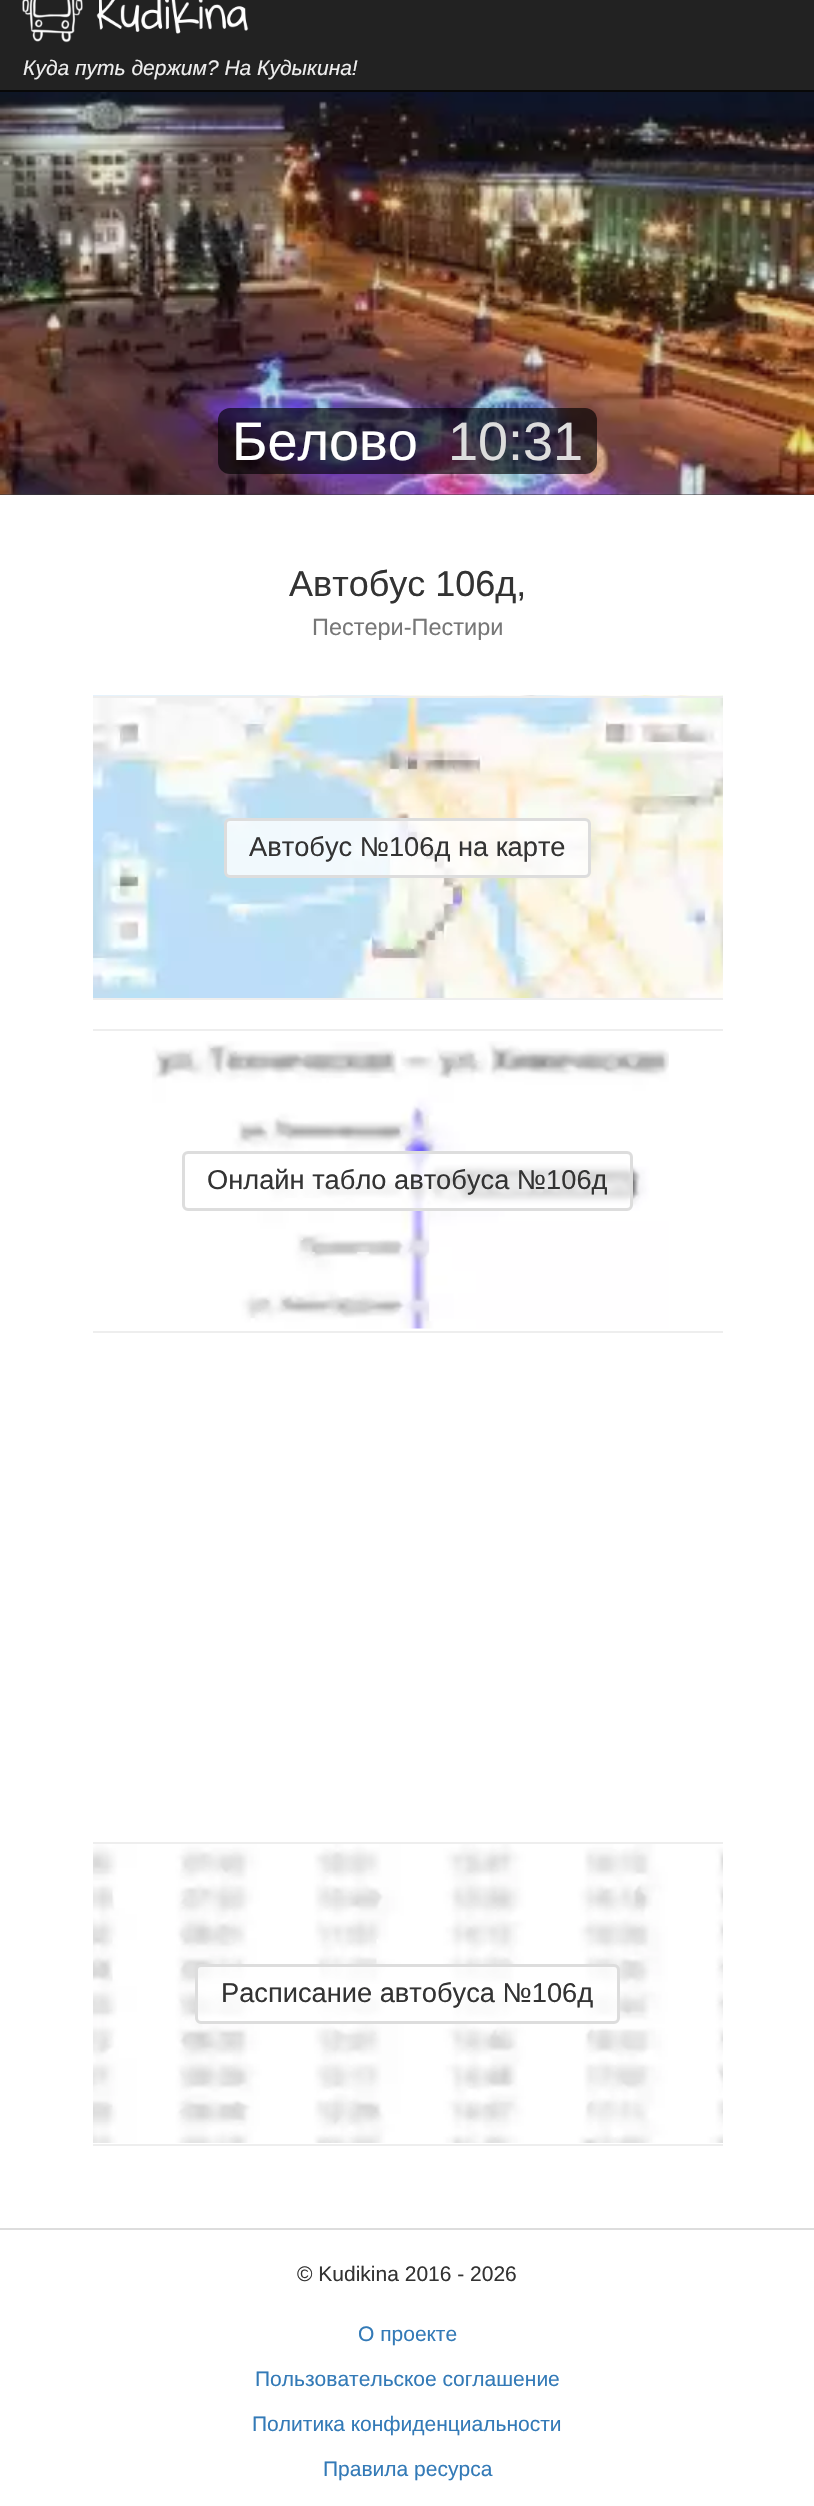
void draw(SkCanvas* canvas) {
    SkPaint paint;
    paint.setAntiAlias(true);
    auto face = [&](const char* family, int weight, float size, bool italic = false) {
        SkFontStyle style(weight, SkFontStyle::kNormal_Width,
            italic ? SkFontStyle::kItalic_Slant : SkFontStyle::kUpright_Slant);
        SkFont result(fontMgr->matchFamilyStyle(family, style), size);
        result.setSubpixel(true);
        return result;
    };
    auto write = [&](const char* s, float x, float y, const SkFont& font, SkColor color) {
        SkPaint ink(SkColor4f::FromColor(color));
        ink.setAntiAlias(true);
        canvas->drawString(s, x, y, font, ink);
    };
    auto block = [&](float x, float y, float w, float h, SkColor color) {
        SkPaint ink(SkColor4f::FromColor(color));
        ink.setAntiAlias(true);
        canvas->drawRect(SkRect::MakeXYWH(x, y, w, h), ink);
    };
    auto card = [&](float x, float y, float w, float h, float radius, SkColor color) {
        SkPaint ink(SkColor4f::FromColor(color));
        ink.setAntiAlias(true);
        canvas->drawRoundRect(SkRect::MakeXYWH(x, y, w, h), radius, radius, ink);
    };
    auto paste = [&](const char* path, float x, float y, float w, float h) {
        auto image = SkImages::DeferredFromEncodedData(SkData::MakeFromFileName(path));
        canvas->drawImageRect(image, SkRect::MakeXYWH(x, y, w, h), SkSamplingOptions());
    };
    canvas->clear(SK_ColorWHITE);
    block(0, 0, 814, 90, SkColorSetRGB(34, 34, 34));
    block(0, 90, 814, 2, SkColorSetRGB(8, 8, 8));
    paste("pic1.png", 22, 0, 227, 43);
    auto kFont1 = face("Liberation Sans", 400, 21, true);
    write("Куда путь держим? На Кудыкина!", 23, 75, kFont1, SkColorSetRGB(238, 238, 238));
    block(0, 92, 814, 403, SkColorSetRGB(56, 56, 56));
    paste("pic2.png", 0, 92, 814, 403);
    card(218, 408, 379, 66, 12, SkColorSetARGB(166, 0, 0, 0));
    auto kFont2 = face("Liberation Sans", 400, 54);
    write("Белово", 232, 460, kFont2, SK_ColorWHITE);
    write("10:31", 448, 460, kFont2, SkColorSetRGB(221, 221, 221));
    auto kFont3 = face("Liberation Sans", 400, 36);
    write("Автобус 106д,", 289, 596, kFont3, SkColorSetRGB(51, 51, 51));
    auto kFont4 = face("Liberation Sans", 400, 23.5f);
    write("Пестери-Пестири", 312, 635, kFont4, SkColorSetRGB(119, 119, 119));
    paste("pic3.png", 93, 695, 630, 303);
    block(93, 696, 630, 2, SkColorSetRGB(238, 238, 238));
    block(93, 998, 630, 2, SkColorSetRGB(238, 238, 238));
    paint.setColor(SkColorSetARGB(204, 255, 255, 255));
    canvas->drawRoundRect(SkRect::MakeXYWH(225.5f, 819.5f, 364, 57), 4.5f, 4.5f, paint);
    paint.setStyle(SkPaint::kStroke_Style);
    paint.setStrokeWidth(3);
    paint.setColor(SkColorSetRGB(221, 221, 221));
    canvas->drawRoundRect(SkRect::MakeXYWH(225.5f, 819.5f, 364, 57), 4.5f, 4.5f, paint);
    auto kFont5 = face("Liberation Sans", 400, 27.25f);
    write("Автобус №106д на карте", 249, 856, kFont5, SkColorSetRGB(51, 51, 51));
    paste("pic4.png", 152, 1041, 517, 288);
    block(93, 1029, 630, 2, SkColorSetRGB(238, 238, 238));
    block(93, 1331, 630, 2, SkColorSetRGB(238, 238, 238));
    paint.setStyle(SkPaint::kFill_Style);
    paint.setColor(SkColorSetARGB(204, 255, 255, 255));
    canvas->drawRoundRect(SkRect::MakeXYWH(183.5f, 1152.5f, 448, 57), 4.5f, 4.5f, paint);
    paint.setStyle(SkPaint::kStroke_Style);
    paint.setColor(SkColorSetRGB(221, 221, 221));
    canvas->drawRoundRect(SkRect::MakeXYWH(183.5f, 1152.5f, 448, 57), 4.5f, 4.5f, paint);
    write("Онлайн табло автобуса №106д", 207, 1189, kFont5, SkColorSetRGB(51, 51, 51));
    paste("pic5.png", 93, 1844, 630, 299);
    block(93, 1842, 630, 2, SkColorSetRGB(238, 238, 238));
    block(93, 2144, 630, 2, SkColorSetRGB(238, 238, 238));
    paint.setStyle(SkPaint::kFill_Style);
    paint.setColor(SkColorSetARGB(204, 255, 255, 255));
    canvas->drawRoundRect(SkRect::MakeXYWH(196.5f, 1965.5f, 422, 57), 4.5f, 4.5f, paint);
    paint.setStyle(SkPaint::kStroke_Style);
    paint.setColor(SkColorSetRGB(221, 221, 221));
    canvas->drawRoundRect(SkRect::MakeXYWH(196.5f, 1965.5f, 422, 57), 4.5f, 4.5f, paint);
    write("Расписание автобуса №106д", 221, 2002, kFont5, SkColorSetRGB(51, 51, 51));
    block(0, 2228, 814, 2, SkColorSetRGB(221, 221, 221));
    auto kFont6 = face("Liberation Sans", 400, 21);
    write("© Kudikina 2016 ‐ 2026", 297, 2281, kFont6, SkColorSetRGB(51, 51, 51));
    write("О проекте", 358, 2341, kFont6, SkColorSetRGB(51, 122, 183));
    write("Пользовательское соглашение", 255, 2386, kFont6, SkColorSetRGB(51, 122, 183));
    write("Политика конфиденциальности", 252, 2431, kFont6, SkColorSetRGB(51, 122, 183));
    write("Правила ресурса", 323, 2476, kFont6, SkColorSetRGB(51, 122, 183));
}
